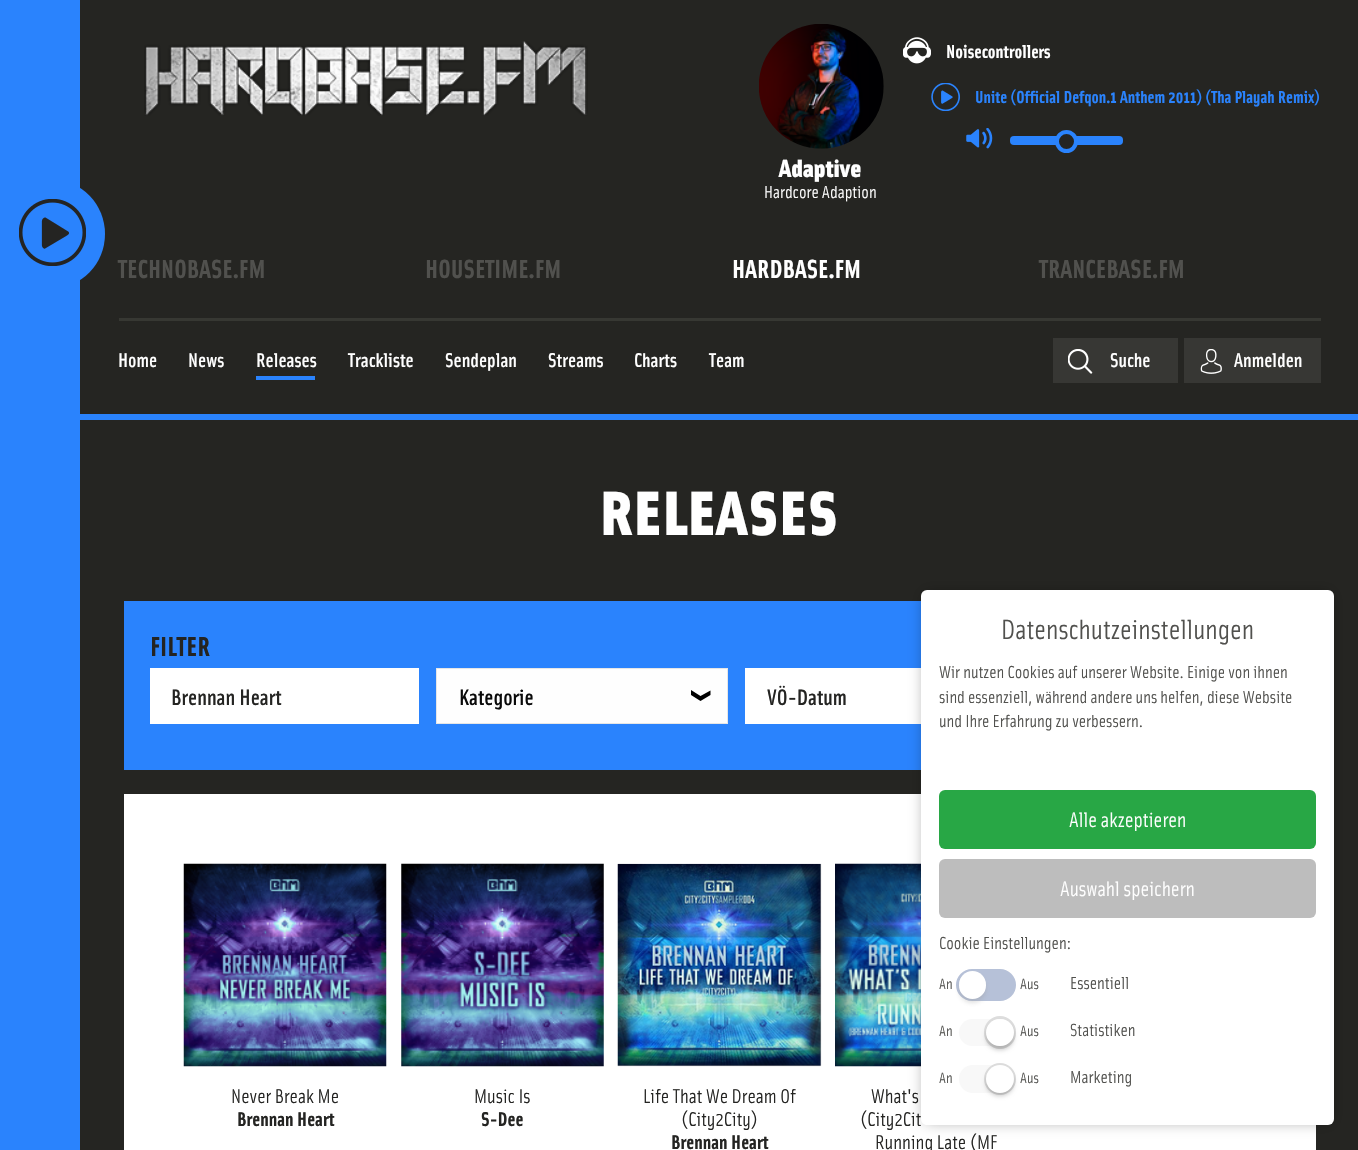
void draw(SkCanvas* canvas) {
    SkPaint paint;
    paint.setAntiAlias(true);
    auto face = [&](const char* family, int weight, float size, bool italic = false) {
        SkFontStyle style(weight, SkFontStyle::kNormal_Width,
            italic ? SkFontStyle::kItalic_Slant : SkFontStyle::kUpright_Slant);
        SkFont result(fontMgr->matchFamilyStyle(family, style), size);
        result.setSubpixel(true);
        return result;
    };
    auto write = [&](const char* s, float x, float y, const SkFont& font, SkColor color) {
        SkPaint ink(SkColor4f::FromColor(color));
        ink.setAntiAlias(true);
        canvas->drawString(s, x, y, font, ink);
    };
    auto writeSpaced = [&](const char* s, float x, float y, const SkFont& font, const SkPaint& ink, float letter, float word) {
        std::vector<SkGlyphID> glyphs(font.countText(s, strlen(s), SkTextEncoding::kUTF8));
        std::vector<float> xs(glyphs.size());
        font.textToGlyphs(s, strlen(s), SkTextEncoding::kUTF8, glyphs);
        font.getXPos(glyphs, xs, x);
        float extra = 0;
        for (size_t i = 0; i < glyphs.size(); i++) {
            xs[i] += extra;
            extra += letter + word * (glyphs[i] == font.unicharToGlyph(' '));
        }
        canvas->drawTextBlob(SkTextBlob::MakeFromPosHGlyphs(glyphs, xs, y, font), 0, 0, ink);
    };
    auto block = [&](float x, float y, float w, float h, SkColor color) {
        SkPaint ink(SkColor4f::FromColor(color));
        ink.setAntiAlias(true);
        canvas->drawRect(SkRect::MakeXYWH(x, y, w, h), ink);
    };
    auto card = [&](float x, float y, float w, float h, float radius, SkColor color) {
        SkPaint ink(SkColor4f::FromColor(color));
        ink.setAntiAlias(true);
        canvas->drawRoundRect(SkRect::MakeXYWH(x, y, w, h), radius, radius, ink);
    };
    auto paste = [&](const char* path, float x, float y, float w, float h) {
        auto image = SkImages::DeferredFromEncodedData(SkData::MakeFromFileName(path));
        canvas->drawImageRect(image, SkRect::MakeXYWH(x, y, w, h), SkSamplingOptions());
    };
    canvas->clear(SkColorSetRGB(37, 37, 34));
    block(0, 0, 80, 1150, SkColorSetRGB(42, 131, 253));
    paint.setColor(SkColorSetRGB(42, 131, 253));
    canvas->drawOval(SkRect::MakeXYWH(0, 180, 105, 108), paint);
    paste("pic1.png", 19, 199, 67, 67);
    paste("pic2.png", 144, 41, 444, 75);
    paste("pic3.png", 903, 37, 28, 27);
    auto kFont1 = face("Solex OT", 700, 18.75f);
    write("Noisecontrollers", 946, 58, kFont1, SK_ColorWHITE);
    paste("pic4.png", 931, 83, 29, 28);
    auto kFont2 = face("Solex OT", 700, 17.5f);
    write("Unite (Official Defqon.1 Anthem 2011) (Tha Playah Remix)", 975, 103, kFont2, SkColorSetRGB(42, 131, 253));
    paste("pic5.png", 966, 128, 27, 21);
    card(1010, 136, 113, 9, 4, SkColorSetRGB(42, 131, 253));
    paint.setColor(SkColorSetRGB(36, 36, 34));
    canvas->drawCircle(1066.5f, 141.5f, 9.5f, paint);
    paint.setStyle(SkPaint::kStroke_Style);
    paint.setStrokeWidth(4);
    paint.setColor(SkColorSetRGB(42, 131, 253));
    canvas->drawCircle(1066.5f, 141.5f, 9.5f, paint);
    paste("pic6.png", 759, 24, 125, 125);
    auto kFont3 = face("Solex OT", 900, 25);
    write("Adaptive", 779, 177, kFont3, SK_ColorWHITE);
    auto kFont4 = face("Solex OT", 400, 17.5f);
    write("Hardcore Adaption", 764, 198, kFont4, SK_ColorWHITE);
    auto kFont5 = face("Solex OT", 700, 26.25f);
    write("TECHNOBASE.FM", 118, 278, kFont5, SkColorSetRGB(81, 81, 78));
    write("HOUSETIME.FM", 425, 278, kFont5, SkColorSetRGB(81, 81, 78));
    write("HARDBASE.FM", 732, 278, kFont5, SK_ColorWHITE);
    write("TRANCEBASE.FM", 1039, 278, kFont5, SkColorSetRGB(81, 81, 78));
    block(119, 318, 1202, 3, SkColorSetRGB(55, 56, 51));
    auto kFont6 = face("Solex OT", 500, 20);
    write("Home", 118, 367, kFont6, SK_ColorWHITE);
    write("News", 188, 367, kFont6, SK_ColorWHITE);
    write("Releases", 256, 367, kFont6, SK_ColorWHITE);
    block(256, 376, 59, 4, SkColorSetRGB(42, 131, 253));
    write("Trackliste", 348, 367, kFont6, SK_ColorWHITE);
    write("Sendeplan", 445, 367, kFont6, SK_ColorWHITE);
    write("Streams", 548, 367, kFont6, SK_ColorWHITE);
    write("Charts", 634, 367, kFont6, SK_ColorWHITE);
    write("Team", 709, 367, kFont6, SK_ColorWHITE);
    block(1053, 338, 125, 45, SkColorSetRGB(55, 55, 52));
    paste("pic7.png", 1068, 349, 25, 25);
    write("Suche", 1110, 367, kFont6, SK_ColorWHITE);
    block(1184, 338, 137, 45, SkColorSetRGB(55, 55, 52));
    paste("pic8.png", 1200, 349, 22, 25);
    write("Anmelden", 1234, 367, kFont6, SK_ColorWHITE);
    block(80, 414, 1278, 6, SkColorSetRGB(42, 131, 253));
    auto kFont7 = face("Solex OT", 900, 62.5f);
    paint.setStyle(SkPaint::kFill_Style);
    paint.setColor(SK_ColorWHITE);
    writeSpaced("RELEASES", 600, 535, kFont7, paint, 1.25f, 0);
    block(124, 601, 797, 169, SkColorSetRGB(42, 131, 253));
    auto kFont8 = face("Solex OT", 700, 27.5f);
    write("FILTER", 150, 656, kFont8, SkColorSetRGB(36, 36, 34));
    block(150, 668, 269, 56, SK_ColorWHITE);
    auto kFont9 = face("Solex OT", 500, 22.5f);
    write("Brennan Heart", 171, 705, kFont9, SkColorSetRGB(36, 36, 34));
    block(437, 669, 290, 54, SkColorSetRGB(254, 254, 254));
    paint.setColor(SK_ColorBLACK);
    canvas->drawPath(SkPathBuilder().moveTo(710.5f, 690.5f).lineTo(710.5f, 695).lineTo(700.5f, 701).lineTo(691, 695).lineTo(691, 690).lineTo(700.5f, 696).close().detach(), paint);
    paint.setStyle(SkPaint::kStroke_Style);
    paint.setStrokeWidth(1);
    paint.setColor(SkColorSetRGB(230, 230, 230));
    canvas->drawRect(SkRect::MakeXYWH(436.5f, 668.5f, 291, 55), paint);
    write("Kategorie", 459, 705, kFont9, SkColorSetRGB(10, 10, 10));
    block(745, 668, 176, 56, SK_ColorWHITE);
    write("VÖ-Datum", 767, 705, kFont9, SkColorSetRGB(36, 36, 34));
    block(124, 794, 1192, 356, SK_ColorWHITE);
    paste("pic9.png", 183, 863, 204, 204);
    auto kFont10 = face("Solex OT", 400, 20);
    write("Never Break Me", 231, 1103, kFont10, SkColorSetRGB(36, 36, 34));
    auto kFont11 = face("Solex OT", 700, 20);
    write("Brennan Heart", 237, 1126, kFont11, SkColorSetRGB(36, 36, 34));
    paste("pic10.png", 401, 863, 203, 204);
    write("Music Is", 474, 1103, kFont10, SkColorSetRGB(36, 36, 34));
    write("S-Dee", 481, 1126, kFont11, SkColorSetRGB(36, 36, 34));
    paste("pic11.png", 617, 863, 205, 204);
    write("Life That We Dream Of", 643, 1103, kFont10, SkColorSetRGB(36, 36, 34));
    write("(City2City)", 681, 1126, kFont10, SkColorSetRGB(36, 36, 34));
    write("Brennan Heart", 671, 1149, kFont11, SkColorSetRGB(36, 36, 34));
    paste("pic12.png", 835, 863, 86, 204);
    write("What's", 871, 1103, kFont10, SkColorSetRGB(36, 36, 34));
    write("(City2Cit", 860, 1126, kFont10, SkColorSetRGB(36, 36, 34));
    write("Running Late (MF", 875, 1149, kFont10, SkColorSetRGB(36, 36, 34));
    card(921, 590, 413, 535, 6, SK_ColorWHITE);
    canvas->save();
    canvas->clipPath(SkPathBuilder(SkPathFillType::kEvenOdd).moveTo(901, 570).lineTo(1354, 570).lineTo(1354, 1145).lineTo(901, 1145).close().moveTo(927, 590).lineTo(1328, 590).cubicTo(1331.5f, 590, 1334, 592.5f, 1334, 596).lineTo(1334, 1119).cubicTo(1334, 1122.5f, 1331.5f, 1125, 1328, 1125).lineTo(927, 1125).cubicTo(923.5f, 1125, 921, 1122.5f, 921, 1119).lineTo(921, 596).cubicTo(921, 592.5f, 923.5f, 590, 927, 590).close().detach(), true);
    paint.setStyle(SkPaint::kFill_Style);
    paint.setColor(SkColorSetARGB(102, 0, 0, 0));
    paint.setMaskFilter(SkMaskFilter::MakeBlur(kNormal_SkBlurStyle, 7.5f));
    canvas->drawRoundRect(SkRect::MakeXYWH(925, 594, 405, 527), 2.5f, 2.5f, paint);
    paint.setMaskFilter(nullptr);
    canvas->restore();
    auto kFont12 = face("Solex OT", 400, 28);
    write("Datenschutzeinstellungen", 1001, 639, kFont12, SkColorSetRGB(81, 81, 78));
    write("Wir nutzen Cookies auf unserer Website. Einige von ihnen", 939, 678, kFont4, SkColorSetRGB(81, 81, 78));
    write("sind essenziell, während andere uns helfen, diese Website", 939, 703, kFont4, SkColorSetRGB(81, 81, 78));
    write("und Ihre Erfahrung zu verbessern.", 939, 727, kFont4, SkColorSetRGB(81, 81, 78));
    card(939, 790, 377, 59, 6, SkColorSetRGB(40, 167, 69));
    auto kFont13 = face("Solex OT", 400, 21);
    write("Alle akzeptieren", 1069, 827, kFont13, SK_ColorWHITE);
    card(939, 859, 377, 59, 6, SkColorSetRGB(189, 189, 189));
    write("Auswahl speichern", 1060, 896, kFont13, SK_ColorWHITE);
    write("Cookie Einstellungen:", 939, 949, kFont4, SkColorSetRGB(81, 81, 78));
    auto kFont14 = face("Solex OT", 400, 15);
    write("An", 939, 989, kFont14, SkColorSetRGB(81, 81, 78));
    paint.setStyle(SkPaint::kStroke_Style);
    paint.setStrokeWidth(3);
    paint.setColor(SkColorSetRGB(182, 193, 216));
    canvas->drawRoundRect(SkRect::MakeXYWH(957.5f, 970.5f, 57, 29), 14.5f, 14.5f, paint);
    card(959, 971, 55, 28, 14, SkColorSetRGB(182, 193, 216));
    paint.setStyle(SkPaint::kFill_Style);
    paint.setColor(SkColorSetARGB(77, 153, 153, 153));
    paint.setMaskFilter(SkMaskFilter::MakeBlur(kNormal_SkBlurStyle, 2));
    canvas->drawRoundRect(SkRect::MakeXYWH(959, 975, 27, 28), 13.5f, 13.5f, paint);
    paint.setMaskFilter(nullptr);
    card(959, 971, 27, 28, 13.5f, SK_ColorWHITE);
    write("Aus", 1020, 989, kFont14, SkColorSetRGB(81, 81, 78));
    write("Essentiell", 1070, 989, kFont4, SkColorSetRGB(81, 81, 78));
    write("An", 939, 1036, kFont14, SkColorSetRGB(81, 81, 78));
    card(959, 1019, 55, 27, 13.5f, SkColorSetRGB(248, 248, 248));
    paint.setStyle(SkPaint::kStroke_Style);
    paint.setColor(SkColorSetRGB(221, 221, 221));
    canvas->drawRoundRect(SkRect::MakeXYWH(985.5f, 1017.5f, 29, 30), 14.5f, 14.5f, paint);
    paint.setStyle(SkPaint::kFill_Style);
    paint.setColor(SkColorSetARGB(51, 0, 0, 0));
    paint.setMaskFilter(SkMaskFilter::MakeBlur(kNormal_SkBlurStyle, 2));
    canvas->drawRoundRect(SkRect::MakeXYWH(986, 1023, 28, 27), 13.5f, 13.5f, paint);
    paint.setMaskFilter(nullptr);
    card(986, 1019, 28, 27, 13.5f, SK_ColorWHITE);
    write("Aus", 1020, 1036, kFont14, SkColorSetRGB(81, 81, 78));
    write("Statistiken", 1070, 1036, kFont4, SkColorSetRGB(81, 81, 78));
    write("An", 939, 1083, kFont14, SkColorSetRGB(81, 81, 78));
    card(959, 1065, 55, 28, 14, SkColorSetRGB(248, 248, 248));
    paint.setStyle(SkPaint::kStroke_Style);
    paint.setColor(SkColorSetRGB(221, 221, 221));
    canvas->drawCircle(1000, 1079, 14.5f, paint);
    paint.setStyle(SkPaint::kFill_Style);
    paint.setColor(SkColorSetARGB(51, 0, 0, 0));
    paint.setMaskFilter(SkMaskFilter::MakeBlur(kNormal_SkBlurStyle, 2));
    canvas->drawRoundRect(SkRect::MakeXYWH(986, 1069, 28, 27), 13.5f, 13.5f, paint);
    paint.setMaskFilter(nullptr);
    paint.setColor(SK_ColorWHITE);
    canvas->drawCircle(1000, 1079, 14, paint);
    write("Aus", 1020, 1083, kFont14, SkColorSetRGB(81, 81, 78));
    write("Marketing", 1070, 1083, kFont4, SkColorSetRGB(81, 81, 78));
}
